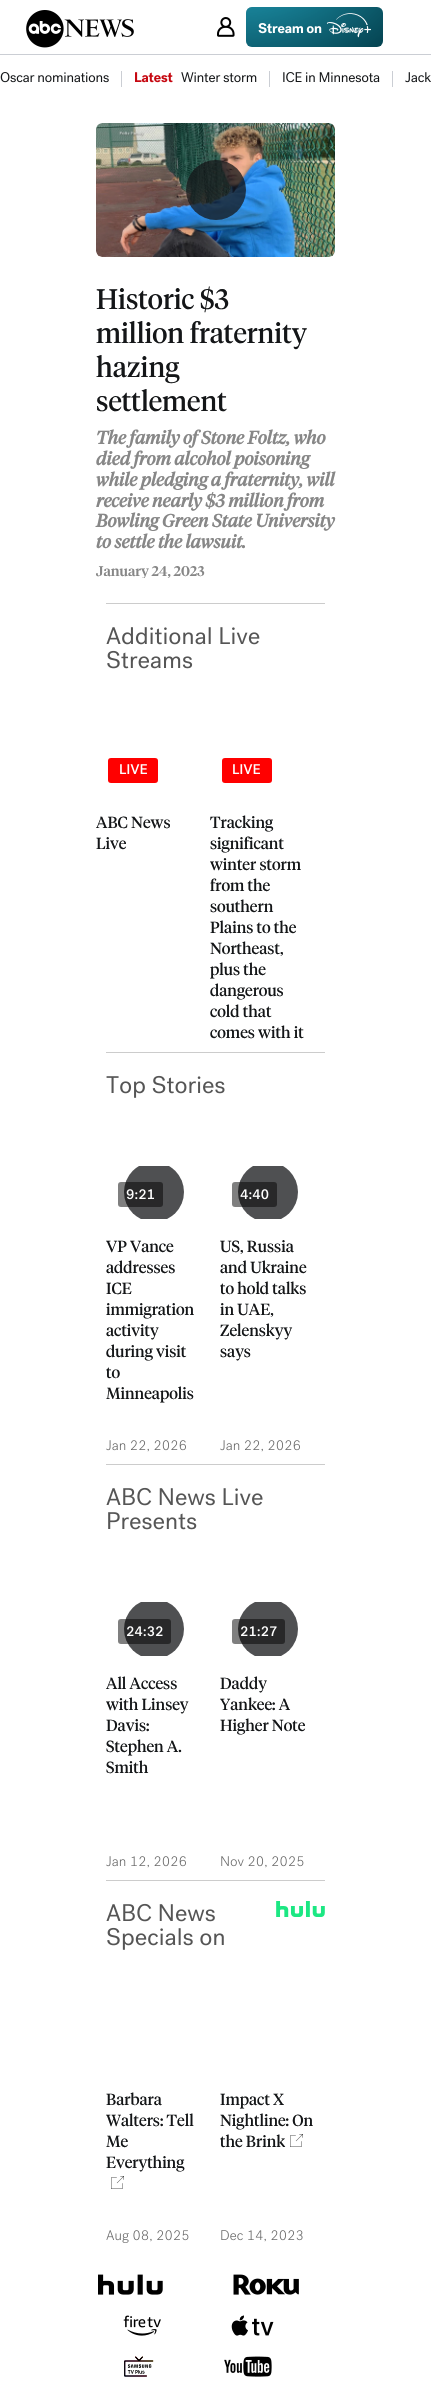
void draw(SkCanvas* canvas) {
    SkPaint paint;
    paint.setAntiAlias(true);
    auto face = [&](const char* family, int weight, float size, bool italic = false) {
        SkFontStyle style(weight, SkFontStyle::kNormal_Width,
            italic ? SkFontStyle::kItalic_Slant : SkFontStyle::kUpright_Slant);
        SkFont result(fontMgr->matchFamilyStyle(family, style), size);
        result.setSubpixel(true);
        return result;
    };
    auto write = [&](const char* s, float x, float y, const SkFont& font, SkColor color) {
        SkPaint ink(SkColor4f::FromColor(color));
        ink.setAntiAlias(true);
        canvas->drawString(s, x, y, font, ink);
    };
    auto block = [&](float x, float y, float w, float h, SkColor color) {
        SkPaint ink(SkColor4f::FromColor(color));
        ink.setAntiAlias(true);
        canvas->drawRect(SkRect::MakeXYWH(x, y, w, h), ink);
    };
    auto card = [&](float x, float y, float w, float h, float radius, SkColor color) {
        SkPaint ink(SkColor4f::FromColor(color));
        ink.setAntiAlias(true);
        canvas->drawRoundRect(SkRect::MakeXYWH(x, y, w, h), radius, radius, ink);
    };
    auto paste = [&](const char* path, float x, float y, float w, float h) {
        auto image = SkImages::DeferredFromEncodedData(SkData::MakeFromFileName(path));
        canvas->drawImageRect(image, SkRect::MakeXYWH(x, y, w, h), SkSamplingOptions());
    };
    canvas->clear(SK_ColorWHITE);
    paste("pic1.png", 26, 10, 108, 38);
    paste("pic2.png", 217, 17, 18, 20);
    card(246, 7, 137, 40, 6, SkColorSetRGB(5, 69, 83));
    {
        const SkColor colors[] = {SkColorSetARGB(179, 51, 221, 255), SkColorSetARGB(0, 51, 221, 255)};
        const float stops[] = {0, 1};
        SkMatrix m = SkMatrix::Translate(232, -53).preScale(206, 140);
        paint.setShader(SkGradientShader::MakeRadial({0, 0}, 1, colors, stops, 2, SkTileMode::kClamp, 0, &m));
        paint.setAlpha(255);
    }
    canvas->drawRoundRect(SkRect::MakeXYWH(246, 7, 137, 40), 6, 6, paint);
    paste("pic3.png", 258, 23, 64, 11);
    paste("pic4.png", 326, 13, 45, 25);
    block(0, 54, 431, 1, SkColorSetRGB(203, 206, 212));
    paste("pic5.png", 0, 72, 109, 11);
    block(121, 71, 1, 16, SkColorSetRGB(203, 206, 212));
    paste("pic6.png", 135, 72, 38, 11);
    paste("pic7.png", 181, 72, 76, 11);
    block(269, 71, 1, 16, SkColorSetRGB(203, 206, 212));
    paste("pic8.png", 283, 72, 97, 11);
    block(392, 71, 1, 16, SkColorSetRGB(203, 206, 212));
    paste("pic9.png", 405, 72, 26, 11);
    paste("pic10.png", 96, 123, 239, 134);
    paint.setShader(nullptr);
    paint.setColor(SkColorSetARGB(191, 20, 22, 24));
    canvas->drawCircle(216, 190, 30, paint);
    auto kFont1 = face("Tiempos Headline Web", 400, 28);
    write("Historic $3", 96, 309, kFont1, SkColorSetRGB(20, 22, 24));
    write("million fraternity", 96, 343, kFont1, SkColorSetRGB(20, 22, 24));
    write("hazing", 96, 377, kFont1, SkColorSetRGB(20, 22, 24));
    write("settlement", 96, 411, kFont1, SkColorSetRGB(20, 22, 24));
    auto kFont2 = face("Tiempos Headline Web", 700, 18, true);
    write("The family of Stone Foltz, who", 96, 444, kFont2, SkColorSetRGB(135, 135, 135));
    write("died from alcohol poisoning", 96, 465, kFont2, SkColorSetRGB(135, 135, 135));
    write("while pledging a fraternity, will", 96, 486, kFont2, SkColorSetRGB(135, 135, 135));
    write("receive nearly $3 million from", 96, 507, kFont2, SkColorSetRGB(135, 135, 135));
    write("Bowling Green State University", 96, 527, kFont2, SkColorSetRGB(135, 135, 135));
    write("to settle the lawsuit.", 96, 548, kFont2, SkColorSetRGB(135, 135, 135));
    canvas->save();
    canvas->clipRect(SkRect::MakeXYWH(96, 281, 239, 297));
    auto kFont3 = face("Tiempos Headline Web", 500, 14);
    write("January 24, 2023", 96, 576, kFont3, SkColorSetRGB(135, 135, 135));
    canvas->restore();
    block(106, 603, 219, 1, SkColorSetRGB(204, 204, 204));
    paste("pic11.png", 106, 627, 154, 18);
    paste("pic12.png", 107, 650, 86, 19);
    card(108, 758, 50, 25, 3, SkColorSetRGB(255, 0, 0));
    paste("pic13.png", 120, 764, 27, 10);
    auto kFont4 = face("Tiempos Headline Web", 400, 16);
    write("ABC News", 96, 828, kFont4, SkColorSetRGB(20, 22, 24));
    write("Live", 96, 849, kFont4, SkColorSetRGB(20, 22, 24));
    card(222, 758, 50, 25, 3, SkColorSetRGB(255, 0, 0));
    paste("pic13.png", 233, 764, 27, 10);
    write("Tracking", 210, 828, kFont4, SkColorSetRGB(20, 22, 24));
    write("significant", 210, 849, kFont4, SkColorSetRGB(20, 22, 24));
    write("winter storm", 210, 870, kFont4, SkColorSetRGB(20, 22, 24));
    write("from the", 210, 891, kFont4, SkColorSetRGB(20, 22, 24));
    write("southern", 210, 912, kFont4, SkColorSetRGB(20, 22, 24));
    write("Plains to the", 210, 933, kFont4, SkColorSetRGB(20, 22, 24));
    write("Northeast,", 210, 954, kFont4, SkColorSetRGB(20, 22, 24));
    write("plus the", 210, 975, kFont4, SkColorSetRGB(20, 22, 24));
    write("dangerous", 210, 996, kFont4, SkColorSetRGB(20, 22, 24));
    write("cold that", 210, 1017, kFont4, SkColorSetRGB(20, 22, 24));
    write("comes with it", 210, 1038, kFont4, SkColorSetRGB(20, 22, 24));
    block(106, 1052, 219, 1, SkColorSetRGB(204, 204, 204));
    paste("pic14.png", 106, 1075, 119, 23);
    canvas->save();
    canvas->clipPath(SkPathBuilder().moveTo(112, 1166).lineTo(196, 1166).cubicTo(199.5f, 1166, 202, 1168.5f, 202, 1172).lineTo(202, 1213).cubicTo(202, 1216.5f, 199.5f, 1219, 196, 1219).lineTo(112, 1219).cubicTo(108.5f, 1219, 106, 1216.5f, 106, 1213).lineTo(106, 1172).cubicTo(106, 1168.5f, 108.5f, 1166, 112, 1166).close().detach(), true);
    paint.setColor(SkColorSetRGB(79, 80, 82));
    canvas->drawCircle(154, 1192, 30, paint);
    canvas->restore();
    card(118, 1182, 45, 25, 3, SkColorSetARGB(128, 0, 0, 0));
    paste("pic15.png", 126, 1189, 29, 11);
    write("VP Vance", 106, 1252, kFont4, SkColorSetRGB(20, 22, 24));
    write("addresses", 106, 1273, kFont4, SkColorSetRGB(20, 22, 24));
    write("ICE", 106, 1294, kFont4, SkColorSetRGB(20, 22, 24));
    write("immigration", 106, 1315, kFont4, SkColorSetRGB(20, 22, 24));
    write("activity", 106, 1336, kFont4, SkColorSetRGB(20, 22, 24));
    write("during visit", 106, 1357, kFont4, SkColorSetRGB(20, 22, 24));
    write("to", 106, 1378, kFont4, SkColorSetRGB(20, 22, 24));
    write("Minneapolis", 106, 1399, kFont4, SkColorSetRGB(20, 22, 24));
    paste("pic16.png", 106, 1440, 80, 12);
    canvas->save();
    canvas->clipPath(SkPathBuilder().moveTo(226, 1166).lineTo(310, 1166).cubicTo(313.5f, 1166, 316, 1168.5f, 316, 1172).lineTo(316, 1213).cubicTo(316, 1216.5f, 313.5f, 1219, 310, 1219).lineTo(226, 1219).cubicTo(222.5f, 1219, 220, 1216.5f, 220, 1213).lineTo(220, 1172).cubicTo(220, 1168.5f, 222.5f, 1166, 226, 1166).close().detach(), true);
    canvas->drawCircle(268, 1192, 30, paint);
    canvas->restore();
    card(232, 1182, 45, 25, 3, SkColorSetARGB(128, 0, 0, 0));
    paste("pic17.png", 240, 1189, 29, 11);
    write("US, Russia", 220, 1252, kFont4, SkColorSetRGB(20, 22, 24));
    write("and Ukraine", 220, 1273, kFont4, SkColorSetRGB(20, 22, 24));
    write("to hold talks", 220, 1294, kFont4, SkColorSetRGB(20, 22, 24));
    write("in UAE,", 220, 1315, kFont4, SkColorSetRGB(20, 22, 24));
    write("Zelenskyy", 220, 1336, kFont4, SkColorSetRGB(20, 22, 24));
    write("says", 220, 1357, kFont4, SkColorSetRGB(20, 22, 24));
    paste("pic16.png", 220, 1440, 80, 12);
    block(106, 1464, 219, 1, SkColorSetRGB(204, 204, 204));
    paste("pic18.png", 106, 1487, 157, 19);
    paste("pic19.png", 108, 1512, 89, 18);
    canvas->save();
    canvas->clipPath(SkPathBuilder().moveTo(112, 1602).lineTo(196, 1602).cubicTo(199.5f, 1602, 202, 1604.5f, 202, 1608).lineTo(202, 1650).cubicTo(202, 1653.5f, 199.5f, 1656, 196, 1656).lineTo(112, 1656).cubicTo(108.5f, 1656, 106, 1653.5f, 106, 1650).lineTo(106, 1608).cubicTo(106, 1604.5f, 108.5f, 1602, 112, 1602).close().detach(), true);
    canvas->drawCircle(154, 1629, 30, paint);
    canvas->restore();
    card(118, 1619, 53, 25, 3, SkColorSetARGB(128, 0, 0, 0));
    paste("pic20.png", 127, 1626, 36, 11);
    write("All Access", 106, 1689, kFont4, SkColorSetRGB(20, 22, 24));
    write("with Linsey", 106, 1710, kFont4, SkColorSetRGB(20, 22, 24));
    write("Davis:", 106, 1731, kFont4, SkColorSetRGB(20, 22, 24));
    write("Stephen A.", 106, 1752, kFont4, SkColorSetRGB(20, 22, 24));
    write("Smith", 106, 1773, kFont4, SkColorSetRGB(20, 22, 24));
    paste("pic21.png", 106, 1856, 80, 12);
    canvas->save();
    canvas->clipPath(SkPathBuilder().moveTo(226, 1602).lineTo(310, 1602).cubicTo(313.5f, 1602, 316, 1604.5f, 316, 1608).lineTo(316, 1650).cubicTo(316, 1653.5f, 313.5f, 1656, 310, 1656).lineTo(226, 1656).cubicTo(222.5f, 1656, 220, 1653.5f, 220, 1650).lineTo(220, 1608).cubicTo(220, 1604.5f, 222.5f, 1602, 226, 1602).close().detach(), true);
    canvas->drawCircle(268, 1629, 30, paint);
    canvas->restore();
    card(232, 1619, 53, 25, 3, SkColorSetARGB(128, 0, 0, 0));
    paste("pic22.png", 241, 1626, 36, 11);
    write("Daddy", 220, 1689, kFont4, SkColorSetRGB(20, 22, 24));
    write("Yankee: A", 220, 1710, kFont4, SkColorSetRGB(20, 22, 24));
    write("Higher Note", 220, 1731, kFont4, SkColorSetRGB(20, 22, 24));
    paste("pic23.png", 221, 1856, 83, 12);
    block(106, 1880, 219, 1, SkColorSetRGB(204, 204, 204));
    paste("pic24.png", 106, 1903, 109, 19);
    paste("pic25.png", 107, 1927, 117, 23);
    paste("pic26.png", 276, 1901, 49, 16);
    write("Barbara", 106, 2105, kFont4, SkColorSetRGB(20, 22, 24));
    write("Walters: Tell", 106, 2126, kFont4, SkColorSetRGB(20, 22, 24));
    write("Me", 106, 2147, kFont4, SkColorSetRGB(20, 22, 24));
    write("Everything", 106, 2168, kFont4, SkColorSetRGB(20, 22, 24));
    paste("pic27.png", 111, 2176, 13, 13);
    paste("pic28.png", 106, 2230, 83, 13);
    write("Impact X", 220, 2105, kFont4, SkColorSetRGB(20, 22, 24));
    write("Nightline: On", 220, 2126, kFont4, SkColorSetRGB(20, 22, 24));
    write("the Brink", 220, 2147, kFont4, SkColorSetRGB(20, 22, 24));
    paste("pic27.png", 290, 2134, 13, 13);
    paste("pic29.png", 221, 2230, 82, 12);
    paste("pic30.png", 98, 2274, 65, 21);
    paste("pic31.png", 233, 2274, 66, 21);
    paste("pic32.png", 123, 2315, 38, 21);
    paste("pic33.png", 231, 2315, 43, 21);
    paste("pic34.png", 124, 2356, 30, 21);
    paste("pic35.png", 224, 2356, 48, 21);
}
